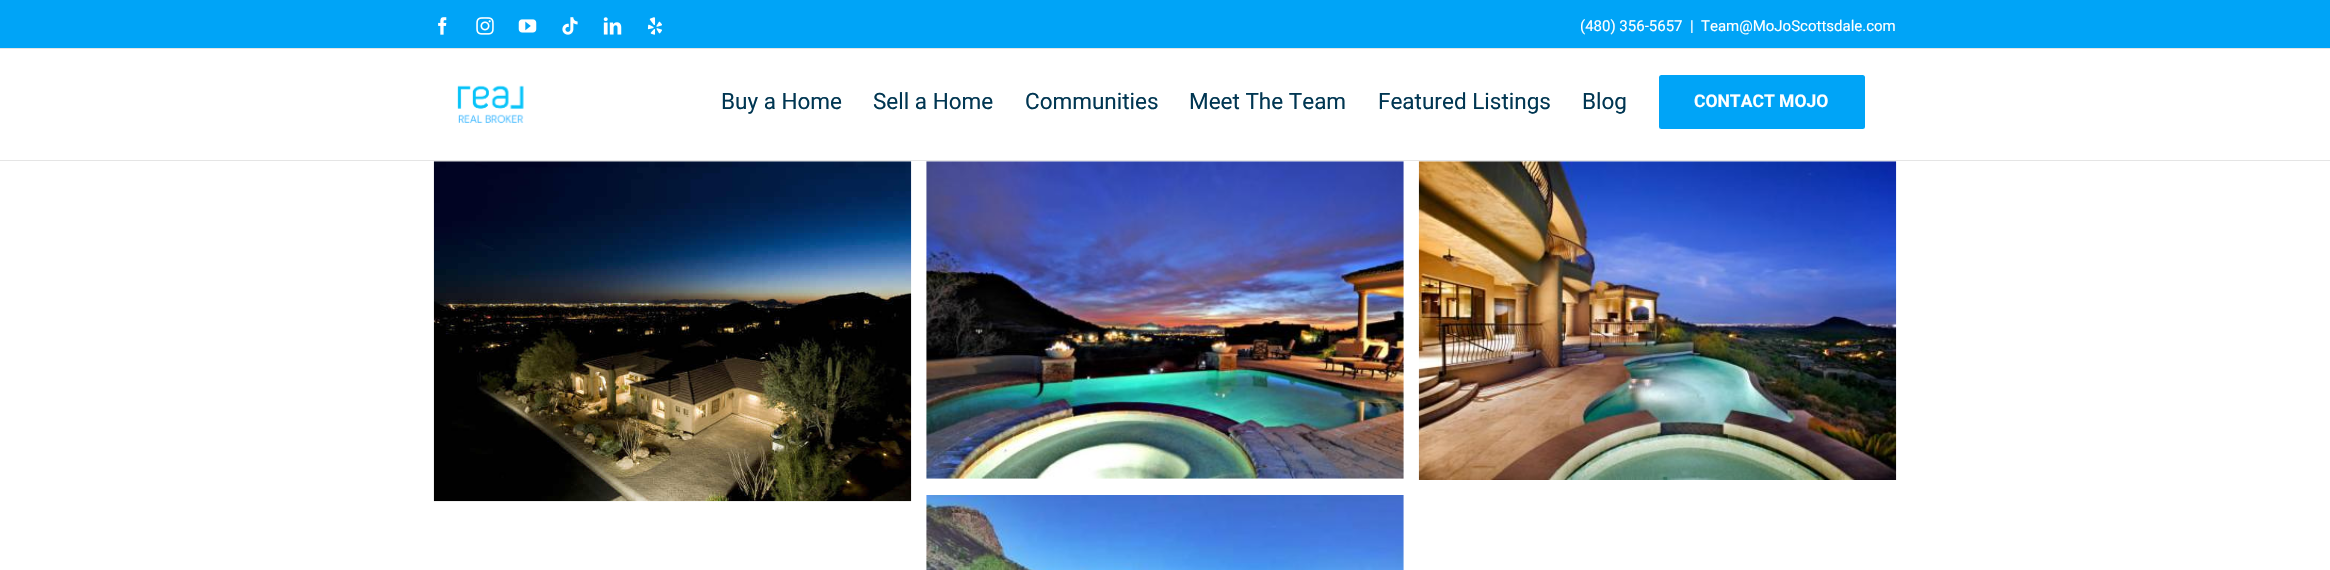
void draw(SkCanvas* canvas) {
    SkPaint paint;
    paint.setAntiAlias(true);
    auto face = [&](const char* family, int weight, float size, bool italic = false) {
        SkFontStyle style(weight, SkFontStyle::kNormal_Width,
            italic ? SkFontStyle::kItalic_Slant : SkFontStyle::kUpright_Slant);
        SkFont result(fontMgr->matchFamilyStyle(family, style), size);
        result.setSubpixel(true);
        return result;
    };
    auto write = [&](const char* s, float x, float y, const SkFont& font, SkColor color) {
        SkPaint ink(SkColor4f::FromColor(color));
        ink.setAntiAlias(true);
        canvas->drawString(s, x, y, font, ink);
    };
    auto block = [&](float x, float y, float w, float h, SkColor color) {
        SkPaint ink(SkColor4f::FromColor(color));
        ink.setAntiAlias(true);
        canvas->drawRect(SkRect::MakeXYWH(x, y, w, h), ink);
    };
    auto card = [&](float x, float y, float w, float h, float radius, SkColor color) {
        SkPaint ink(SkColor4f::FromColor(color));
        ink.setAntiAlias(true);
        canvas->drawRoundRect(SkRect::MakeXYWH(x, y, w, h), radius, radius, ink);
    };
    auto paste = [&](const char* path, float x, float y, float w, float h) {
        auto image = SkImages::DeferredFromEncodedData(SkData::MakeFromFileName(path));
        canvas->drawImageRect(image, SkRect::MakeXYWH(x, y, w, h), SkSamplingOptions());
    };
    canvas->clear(SK_ColorWHITE);
    block(0, 0, 2330, 48, SkColorSetRGB(0, 164, 247));
    block(0, 48, 2330, 1, SkColorSetRGB(229, 229, 229));
    paste("pic1.png", 438, 17, 9, 18);
    paste("pic2.png", 476, 17, 18, 18);
    paste("pic3.png", 518, 19, 19, 14);
    paste("pic4.png", 562, 17, 16, 18);
    paste("pic5.png", 603, 17, 19, 18);
    paste("pic6.png", 647, 17, 15, 18);
    auto kFont1 = face("Roboto", 400, 15);
    write("(480) 356-5657", 1580, 31, kFont1, SK_ColorWHITE);
    write("|", 1690, 31, kFont1, SK_ColorWHITE);
    write("Team@MoJoScottsdale.com", 1701, 31, kFont1, SK_ColorWHITE);
    block(0, 160, 2330, 1, SkColorSetRGB(229, 229, 229));
    paste("pic7.png", 457, 85, 67, 39);
    auto kFont2 = face("Roboto", 400, 22.5f);
    write("Buy a Home", 721, 109, kFont2, SkColorSetRGB(0, 54, 82));
    write("Sell a Home", 873, 109, kFont2, SkColorSetRGB(0, 54, 82));
    write("Communities", 1025, 109, kFont2, SkColorSetRGB(0, 54, 82));
    write("Meet The Team", 1189, 109, kFont2, SkColorSetRGB(0, 54, 82));
    write("Featured Listings", 1378, 109, kFont2, SkColorSetRGB(0, 54, 82));
    write("Blog", 1582, 109, kFont2, SkColorSetRGB(0, 54, 82));
    card(1659, 75, 206, 54, 2.5f, SkColorSetRGB(0, 164, 247));
    auto kFont3 = face("Roboto", 700, 17.5f);
    write("CONTACT MOJO", 1694, 107, kFont3, SK_ColorWHITE);
    paste("pic8.png", 433, 161, 479, 341);
    paste("pic9.png", 926, 161, 478, 318);
    paste("pic10.png", 1418, 161, 479, 319);
    paste("pic11.png", 926, 495, 478, 75);
}
